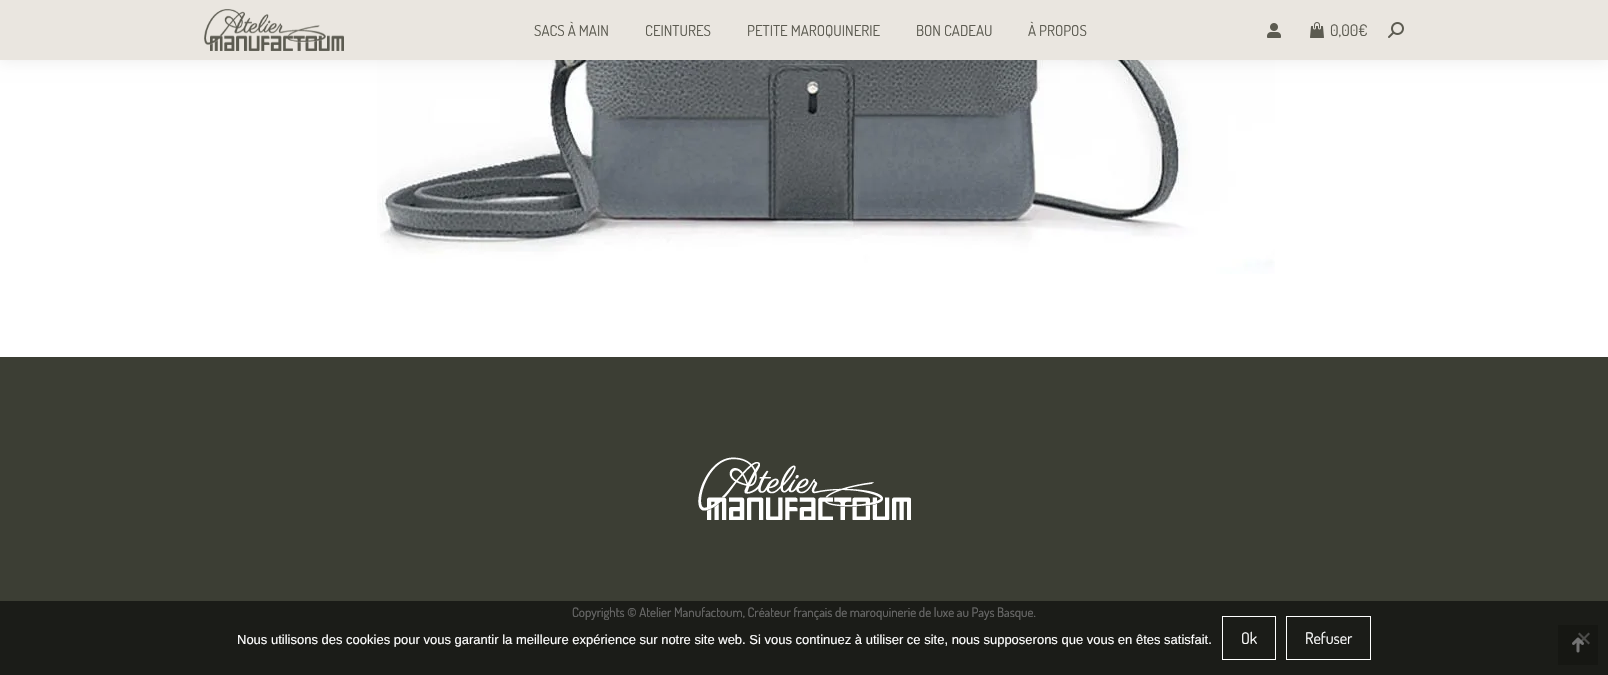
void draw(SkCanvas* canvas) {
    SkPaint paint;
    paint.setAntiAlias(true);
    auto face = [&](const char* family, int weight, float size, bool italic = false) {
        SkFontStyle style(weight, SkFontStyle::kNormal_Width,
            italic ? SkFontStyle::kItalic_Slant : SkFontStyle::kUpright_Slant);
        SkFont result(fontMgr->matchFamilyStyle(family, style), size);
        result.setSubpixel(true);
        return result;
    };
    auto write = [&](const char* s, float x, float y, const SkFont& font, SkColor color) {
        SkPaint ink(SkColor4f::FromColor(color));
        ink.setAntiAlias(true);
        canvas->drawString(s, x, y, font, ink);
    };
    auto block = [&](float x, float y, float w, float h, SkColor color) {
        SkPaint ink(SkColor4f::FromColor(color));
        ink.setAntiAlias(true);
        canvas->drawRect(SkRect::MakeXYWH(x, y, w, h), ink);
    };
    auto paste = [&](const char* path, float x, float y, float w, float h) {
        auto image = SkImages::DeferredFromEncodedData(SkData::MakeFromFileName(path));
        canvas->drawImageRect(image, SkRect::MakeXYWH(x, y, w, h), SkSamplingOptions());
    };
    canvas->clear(SK_ColorWHITE);
    paste("pic5.png", 377, 60, 898, 214);
    paint.setColor(SkColorSetARGB(18, 0, 0, 0));
    paint.setMaskFilter(SkMaskFilter::MakeBlur(kNormal_SkBlurStyle, 7.5f));
    canvas->drawRect(SkRect::MakeXYWH(-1, -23, 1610, 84), paint);
    paint.setMaskFilter(nullptr);
    block(0, 0, 1608, 60, SkColorSetRGB(234, 230, 224));
    paste("pic1.png", 204, 9, 140, 42);
    auto kFont1 = face("Dosis", 400, 15);
    write("SACS À MAIN", 534, 36, kFont1, SkColorSetRGB(92, 91, 81));
    write("CEINTURES", 645, 36, kFont1, SkColorSetRGB(92, 91, 81));
    write("PETITE MAROQUINERIE", 747, 36, kFont1, SkColorSetRGB(92, 91, 81));
    write("BON CADEAU", 916, 36, kFont1, SkColorSetRGB(92, 91, 81));
    write("À PROPOS", 1028, 36, kFont1, SkColorSetRGB(92, 91, 81));
    paste("pic2.png", 1267, 23, 14, 15);
    paste("pic3.png", 1310, 22, 14, 16);
    auto kFont2 = face("Dosis", 400, 16);
    write("0,00€", 1330, 36, kFont2, SkColorSetRGB(92, 91, 81));
    paste("pic4.png", 1388, 22, 16, 16);
    block(0, 357, 1608, 318, SkColorSetRGB(60, 62, 52));
    paste("pic6.png", 698, 457, 213, 63);
    auto kFont3 = face("Dosis", 400, 13);
    write("Copyrights © Atelier Manufactoum, Créateur français de maroquinerie de luxe au Pays Basque.", 572, 617, kFont3, SkColorSetRGB(238, 238, 238));
    block(1558, 625, 40, 40, SkColorSetRGB(48, 50, 42));
    paste("pic7.png", 1572, 637, 12, 16);
    block(0, 601, 1608, 74, SkColorSetARGB(140, 0, 0, 0));
    auto kFont4 = face("Liberation Sans", 400, 13);
    write("Nous utilisons des cookies pour vous garantir la meilleure expérience sur notre site web. Si vous continuez à utiliser ce site, nous supposerons que vous en êtes satisfait.", 237, 644, kFont4, SK_ColorWHITE);
    paint.setStyle(SkPaint::kStroke_Style);
    paint.setStrokeWidth(1);
    paint.setColor(SK_ColorWHITE);
    canvas->drawRect(SkRect::MakeXYWH(1222.5f, 616.5f, 53, 43), paint);
    write("Ok", 1241, 644, kFont2, SK_ColorWHITE);
    canvas->drawRect(SkRect::MakeXYWH(1286.5f, 616.5f, 84, 43), paint);
    write("Refuser", 1305, 644, kFont2, SK_ColorWHITE);
    paint.setStyle(SkPaint::kFill_Style);
    paint.setColor(SkColorSetARGB(128, 128, 128, 128));
    canvas->drawPath(SkPathBuilder().moveTo(1588.5f, 632.5f).lineTo(1590, 634).lineTo(1579.5f, 644.5f).lineTo(1578, 643).close().detach(), paint);
    paint.setColor(SkColorSetRGB(75, 75, 73));
    canvas->drawPath(SkPathBuilder().moveTo(1578, 634).lineTo(1579.5f, 632.5f).lineTo(1590, 643).lineTo(1588.5f, 644.5f).close().detach(), paint);
}
